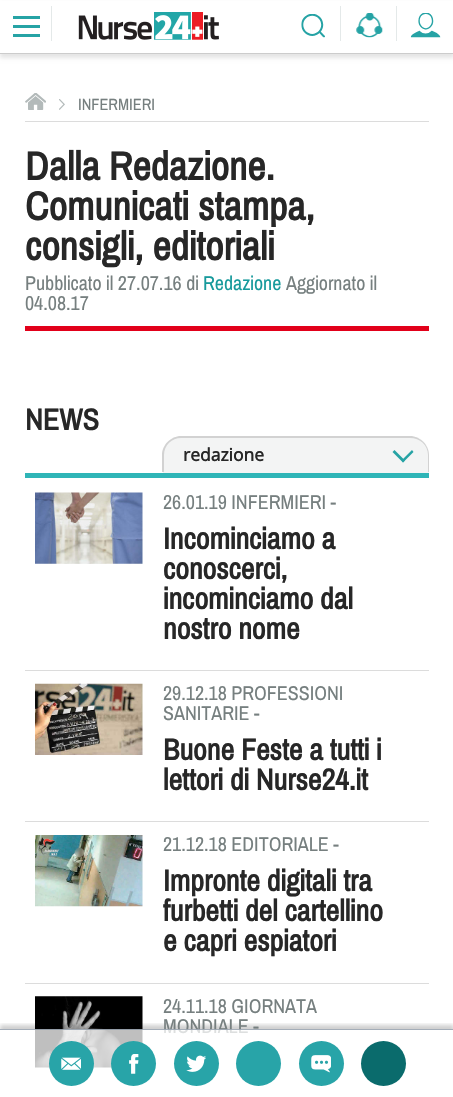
void draw(SkCanvas* canvas) {
    SkPaint paint;
    paint.setAntiAlias(true);
    auto face = [&](const char* family, int weight, float size, bool italic = false) {
        SkFontStyle style(weight, SkFontStyle::kNormal_Width,
            italic ? SkFontStyle::kItalic_Slant : SkFontStyle::kUpright_Slant);
        SkFont result(fontMgr->matchFamilyStyle(family, style), size);
        result.setSubpixel(true);
        return result;
    };
    auto write = [&](const char* s, float x, float y, const SkFont& font, SkColor color) {
        SkPaint ink(SkColor4f::FromColor(color));
        ink.setAntiAlias(true);
        canvas->drawString(s, x, y, font, ink);
    };
    auto block = [&](float x, float y, float w, float h, SkColor color) {
        SkPaint ink(SkColor4f::FromColor(color));
        ink.setAntiAlias(true);
        canvas->drawRect(SkRect::MakeXYWH(x, y, w, h), ink);
    };
    auto paste = [&](const char* path, float x, float y, float w, float h) {
        auto image = SkImages::DeferredFromEncodedData(SkData::MakeFromFileName(path));
        canvas->drawImageRect(image, SkRect::MakeXYWH(x, y, w, h), SkSamplingOptions());
    };
    canvas->clear(SK_ColorWHITE);
    paint.setColor(SkColorSetARGB(26, 0, 0, 0));
    paint.setMaskFilter(SkMaskFilter::MakeBlur(kNormal_SkBlurStyle, 2));
    canvas->drawRect(SkRect::MakeXYWH(0, 4, 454, 54), paint);
    paint.setMaskFilter(nullptr);
    block(0, 1, 453, 52, SK_ColorWHITE);
    block(0, 53, 453, 1, SkColorSetRGB(204, 204, 204));
    paste("pic1.png", 78, 12, 141, 28);
    paste("pic2.png", 301, 14, 24, 24);
    block(340, 6, 1, 35, SkColorSetRGB(228, 233, 233));
    paste("pic3.png", 356, 13, 27, 25);
    block(396, 6, 1, 35, SkColorSetRGB(228, 233, 233));
    paste("pic4.png", 410, 13, 31, 25);
    block(13, 25, 27, 3, SkColorSetRGB(38, 163, 165));
    block(13, 16, 27, 3, SkColorSetRGB(38, 163, 165));
    block(13, 34, 27, 3, SkColorSetRGB(38, 163, 165));
    block(51, 6, 1, 35, SkColorSetRGB(228, 233, 233));
    block(25, 121, 404, 1, SkColorSetRGB(220, 220, 220));
    paste("pic5.png", 25, 93, 21, 17);
    paste("pic6.png", 59, 99, 6, 11);
    auto kFont1 = face("Archivo Narrow", 400, 16.25f);
    write("INFERMIERI", 78, 110, kFont1, SkColorSetRGB(118, 127, 127));
    auto kFont2 = face("Archivo Narrow", 700, 40);
    write("Dalla Redazione.", 25, 180, kFont2, SkColorSetRGB(39, 39, 39));
    write("Comunicati stampa,", 25, 220, kFont2, SkColorSetRGB(39, 39, 39));
    write("consigli, editoriali", 25, 260, kFont2, SkColorSetRGB(39, 39, 39));
    block(25, 326, 404, 5, SkColorSetRGB(226, 0, 26));
    auto kFont3 = face("Archivo Narrow", 400, 20);
    write("Pubblicato il 27.07.16 di", 25, 290, kFont3, SkColorSetRGB(118, 127, 127));
    write("Redazione", 203, 290, kFont3, SkColorSetRGB(23, 154, 156));
    write("Aggiornato il", 286, 290, kFont3, SkColorSetRGB(118, 127, 127));
    write("04.08.17", 25, 310, kFont3, SkColorSetRGB(118, 127, 127));
    paste("pic14.png", 35, 996, 108, 72);
    canvas->save();
    canvas->clipRect(SkRect::MakeXYWH(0, 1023, 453, 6));
    paint.setColor(SkColorSetARGB(48, 0, 0, 0));
    paint.setMaskFilter(SkMaskFilter::MakeBlur(kNormal_SkBlurStyle, 2));
    canvas->drawRect(SkRect::MakeXYWH(0, 1025, 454, 69), paint);
    paint.setMaskFilter(nullptr);
    canvas->restore();
    write("MONDIALE -", 163, 1033, kFont3, SkColorSetRGB(118, 127, 127));
    block(35, 1029, 213, 39, SkColorSetARGB(191, 255, 255, 255));
    block(0, 1029, 453, 1, SkColorSetARGB(191, 134, 145, 160));
    paint.setColor(SkColorSetRGB(40, 164, 168));
    canvas->drawCircle(71.5f, 1063.5f, 22.5f, paint);
    paste("pic7.png", 61, 1057, 20, 13);
    canvas->drawCircle(133.5f, 1063.5f, 22.5f, paint);
    paste("pic8.png", 129, 1054, 10, 20);
    canvas->drawCircle(196.5f, 1063.5f, 22.5f, paint);
    paste("pic9.png", 186, 1055, 20, 17);
    canvas->drawCircle(258.5f, 1063.5f, 22.5f, paint);
    canvas->drawCircle(321.5f, 1063.5f, 22.5f, paint);
    paste("pic10.png", 311, 1055, 20, 18);
    paint.setColor(SkColorSetRGB(10, 107, 108));
    canvas->drawCircle(383.5f, 1063.5f, 22.5f, paint);
    block(25, 473, 404, 5, SkColorSetRGB(47, 181, 183));
    auto kFont4 = face("Archivo Narrow", 700, 30);
    write("NEWS", 25, 430, kFont4, SkColorSetRGB(39, 39, 39));
    paint.setColor(SkColorSetRGB(243, 244, 244));
    canvas->drawPath(SkPathBuilder().moveTo(182, 436).lineTo(410, 436).cubicTo(420.5f, 436, 429, 444.5f, 429, 455).lineTo(429, 473).lineTo(163, 473).lineTo(163, 455).cubicTo(163, 444.5f, 171.5f, 436, 182, 436).close().detach(), paint);
    paint.setColor(SkColorSetRGB(210, 210, 210));
    canvas->drawPath(SkPathBuilder(SkPathFillType::kEvenOdd).moveTo(181, 436).lineTo(410, 436).cubicTo(420, 436, 429, 445, 429, 455).lineTo(429, 472).lineTo(162, 472).lineTo(162, 455).cubicTo(162, 445, 171, 436, 181, 436).close().moveTo(181, 438).lineTo(410, 438).cubicTo(420, 438, 428, 445, 428, 455).lineTo(428, 472).lineTo(164, 472).lineTo(164, 455).cubicTo(164, 445, 172, 438, 181, 438).close().detach(), paint);
    auto kFont5 = face("Open Sans", 700, 17.5f);
    write("redazione", 183, 461, kFont5, SkColorSetRGB(39, 39, 39));
    paint.setColor(SkColorSetRGB(38, 163, 165));
    canvas->drawPath(SkPathBuilder().moveTo(412, 450).lineTo(413.5f, 452).lineTo(403, 462.5f).lineTo(401.5f, 460.5f).close().detach(), paint);
    canvas->drawPath(SkPathBuilder().moveTo(392.5f, 452).lineTo(394.5f, 450).lineTo(405, 460.5f).lineTo(403, 462.5f).close().detach(), paint);
    block(25, 670, 404, 1, SkColorSetRGB(220, 220, 220));
    paste("pic11.png", 35, 492, 108, 72);
    write("26.01.19 INFERMIERI -", 163, 509, kFont3, SkColorSetRGB(118, 127, 127));
    write("Incominciamo a", 163, 549, kFont4, SkColorSetRGB(39, 39, 39));
    write("conoscerci,", 163, 579, kFont4, SkColorSetRGB(39, 39, 39));
    write("incominciamo dal", 163, 609, kFont4, SkColorSetRGB(39, 39, 39));
    write("nostro nome", 163, 639, kFont4, SkColorSetRGB(39, 39, 39));
    block(25, 821, 404, 1, SkColorSetRGB(220, 220, 220));
    paste("pic12.png", 35, 683, 108, 72);
    write("29.12.18 PROFESSIONI", 163, 700, kFont3, SkColorSetRGB(118, 127, 127));
    write("SANITARIE -", 163, 720, kFont3, SkColorSetRGB(118, 127, 127));
    write("Buone Feste a tutti i", 163, 760, kFont4, SkColorSetRGB(39, 39, 39));
    write("lettori di Nurse24.it", 163, 790, kFont4, SkColorSetRGB(39, 39, 39));
    block(25, 983, 404, 1, SkColorSetRGB(220, 220, 220));
    paste("pic13.png", 35, 835, 108, 72);
    write("21.12.18 EDITORIALE -", 163, 851, kFont3, SkColorSetRGB(118, 127, 127));
    write("Impronte digitali tra", 163, 891, kFont4, SkColorSetRGB(39, 39, 39));
    write("furbetti del cartellino", 163, 921, kFont4, SkColorSetRGB(39, 39, 39));
    write("e capri espiatori", 163, 951, kFont4, SkColorSetRGB(39, 39, 39));
    write("24.11.18 GIORNATA", 163, 1013, kFont3, SkColorSetRGB(118, 127, 127));
}
